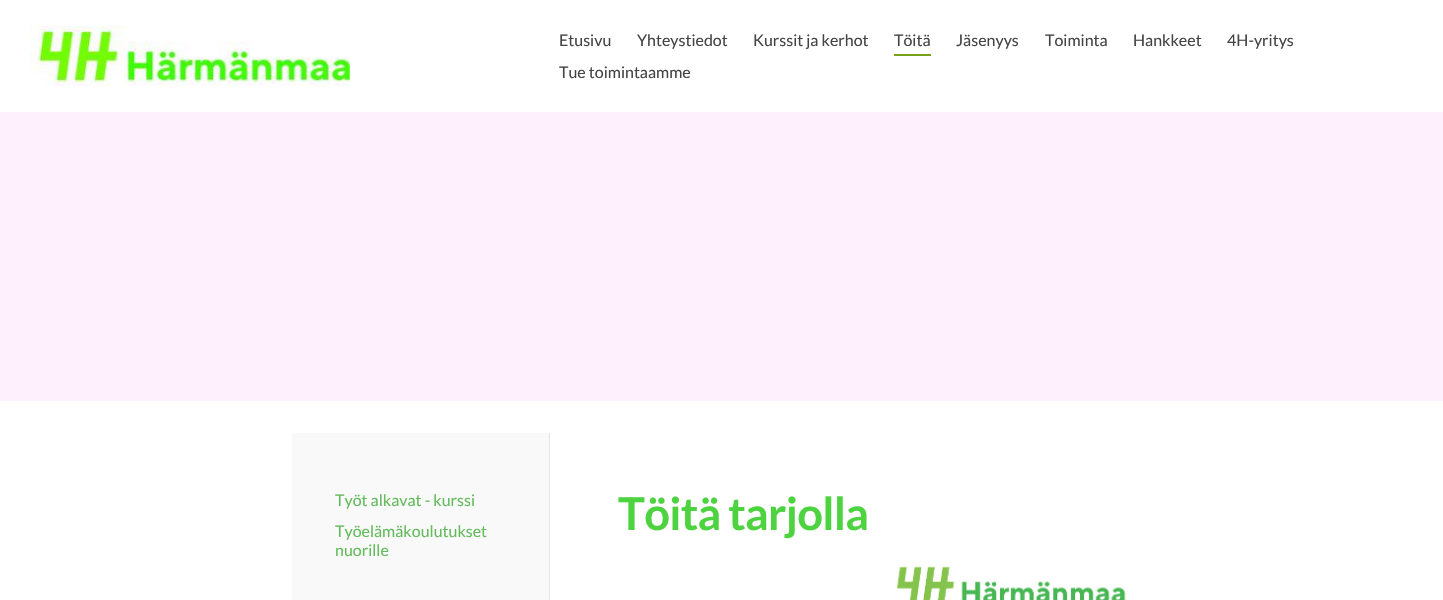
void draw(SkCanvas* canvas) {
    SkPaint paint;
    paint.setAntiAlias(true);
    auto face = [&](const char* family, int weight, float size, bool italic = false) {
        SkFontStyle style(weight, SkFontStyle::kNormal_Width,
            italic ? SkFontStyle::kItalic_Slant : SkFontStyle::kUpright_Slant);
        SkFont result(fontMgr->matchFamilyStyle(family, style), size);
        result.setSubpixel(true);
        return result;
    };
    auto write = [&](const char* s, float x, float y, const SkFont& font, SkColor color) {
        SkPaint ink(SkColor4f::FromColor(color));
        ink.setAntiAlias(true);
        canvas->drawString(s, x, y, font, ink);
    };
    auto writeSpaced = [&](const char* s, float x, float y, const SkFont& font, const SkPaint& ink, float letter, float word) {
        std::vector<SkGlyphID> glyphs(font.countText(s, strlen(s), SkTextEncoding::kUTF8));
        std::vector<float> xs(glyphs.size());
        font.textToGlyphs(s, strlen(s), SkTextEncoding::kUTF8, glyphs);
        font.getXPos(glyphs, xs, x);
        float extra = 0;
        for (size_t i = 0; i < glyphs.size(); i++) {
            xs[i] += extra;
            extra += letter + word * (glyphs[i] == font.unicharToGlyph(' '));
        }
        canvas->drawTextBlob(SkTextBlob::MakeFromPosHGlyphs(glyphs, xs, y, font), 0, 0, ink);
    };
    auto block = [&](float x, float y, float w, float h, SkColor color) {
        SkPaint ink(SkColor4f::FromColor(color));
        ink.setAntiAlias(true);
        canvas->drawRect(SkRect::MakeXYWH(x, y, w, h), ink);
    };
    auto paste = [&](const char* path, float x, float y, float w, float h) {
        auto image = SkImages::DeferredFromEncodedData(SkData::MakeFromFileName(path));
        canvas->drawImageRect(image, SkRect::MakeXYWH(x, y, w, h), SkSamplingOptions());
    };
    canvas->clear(SK_ColorWHITE);
    block(0, 112, 1443, 289, SkColorSetRGB(255, 240, 253));
    paste("pic1.png", 30, 26, 320, 60);
    auto kFont1 = face("Lato", 400, 16);
    write("Etusivu", 559, 46, kFont1, SkColorSetRGB(68, 68, 68));
    write("Yhteystiedot", 637, 46, kFont1, SkColorSetRGB(68, 68, 68));
    write("Kurssit ja kerhot", 753, 46, kFont1, SkColorSetRGB(68, 68, 68));
    write("Töitä", 894, 46, kFont1, SkColorSetRGB(68, 68, 68));
    block(894, 54, 37, 2, SkColorSetRGB(120, 163, 25));
    write("Jäsenyys", 956, 46, kFont1, SkColorSetRGB(68, 68, 68));
    write("Toiminta", 1045, 46, kFont1, SkColorSetRGB(68, 68, 68));
    write("Hankkeet", 1133, 46, kFont1, SkColorSetRGB(68, 68, 68));
    write("4H-yritys", 1227, 46, kFont1, SkColorSetRGB(68, 68, 68));
    write("Tue toimintaamme", 559, 78, kFont1, SkColorSetRGB(68, 68, 68));
    paint.setColor(SkColorSetRGB(249, 249, 249));
    canvas->drawPath(SkPathBuilder().moveTo(295, 433).lineTo(550, 433).lineTo(550, 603).lineTo(292, 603).lineTo(292, 436).cubicTo(292, 434.5f, 293.5f, 433, 295, 433).close().detach(), paint);
    block(549, 433, 1, 167, SkColorSetRGB(230, 230, 230));
    write("Työt alkavat - kurssi", 335, 506, kFont1, SkColorSetRGB(99, 187, 91));
    write("Työelämäkoulutukset", 335, 537, kFont1, SkColorSetRGB(99, 187, 91));
    write("nuorille", 335, 556, kFont1, SkColorSetRGB(99, 187, 91));
    auto kFont2 = face("Lato", 700, 45.25f);
    paint.setColor(SkColorSetRGB(78, 211, 64));
    writeSpaced("Töitä tarjolla", 618, 530, kFont2, paint, -0.75f, 0);
    paste("pic2.png", 896, 566, 230, 34);
}
